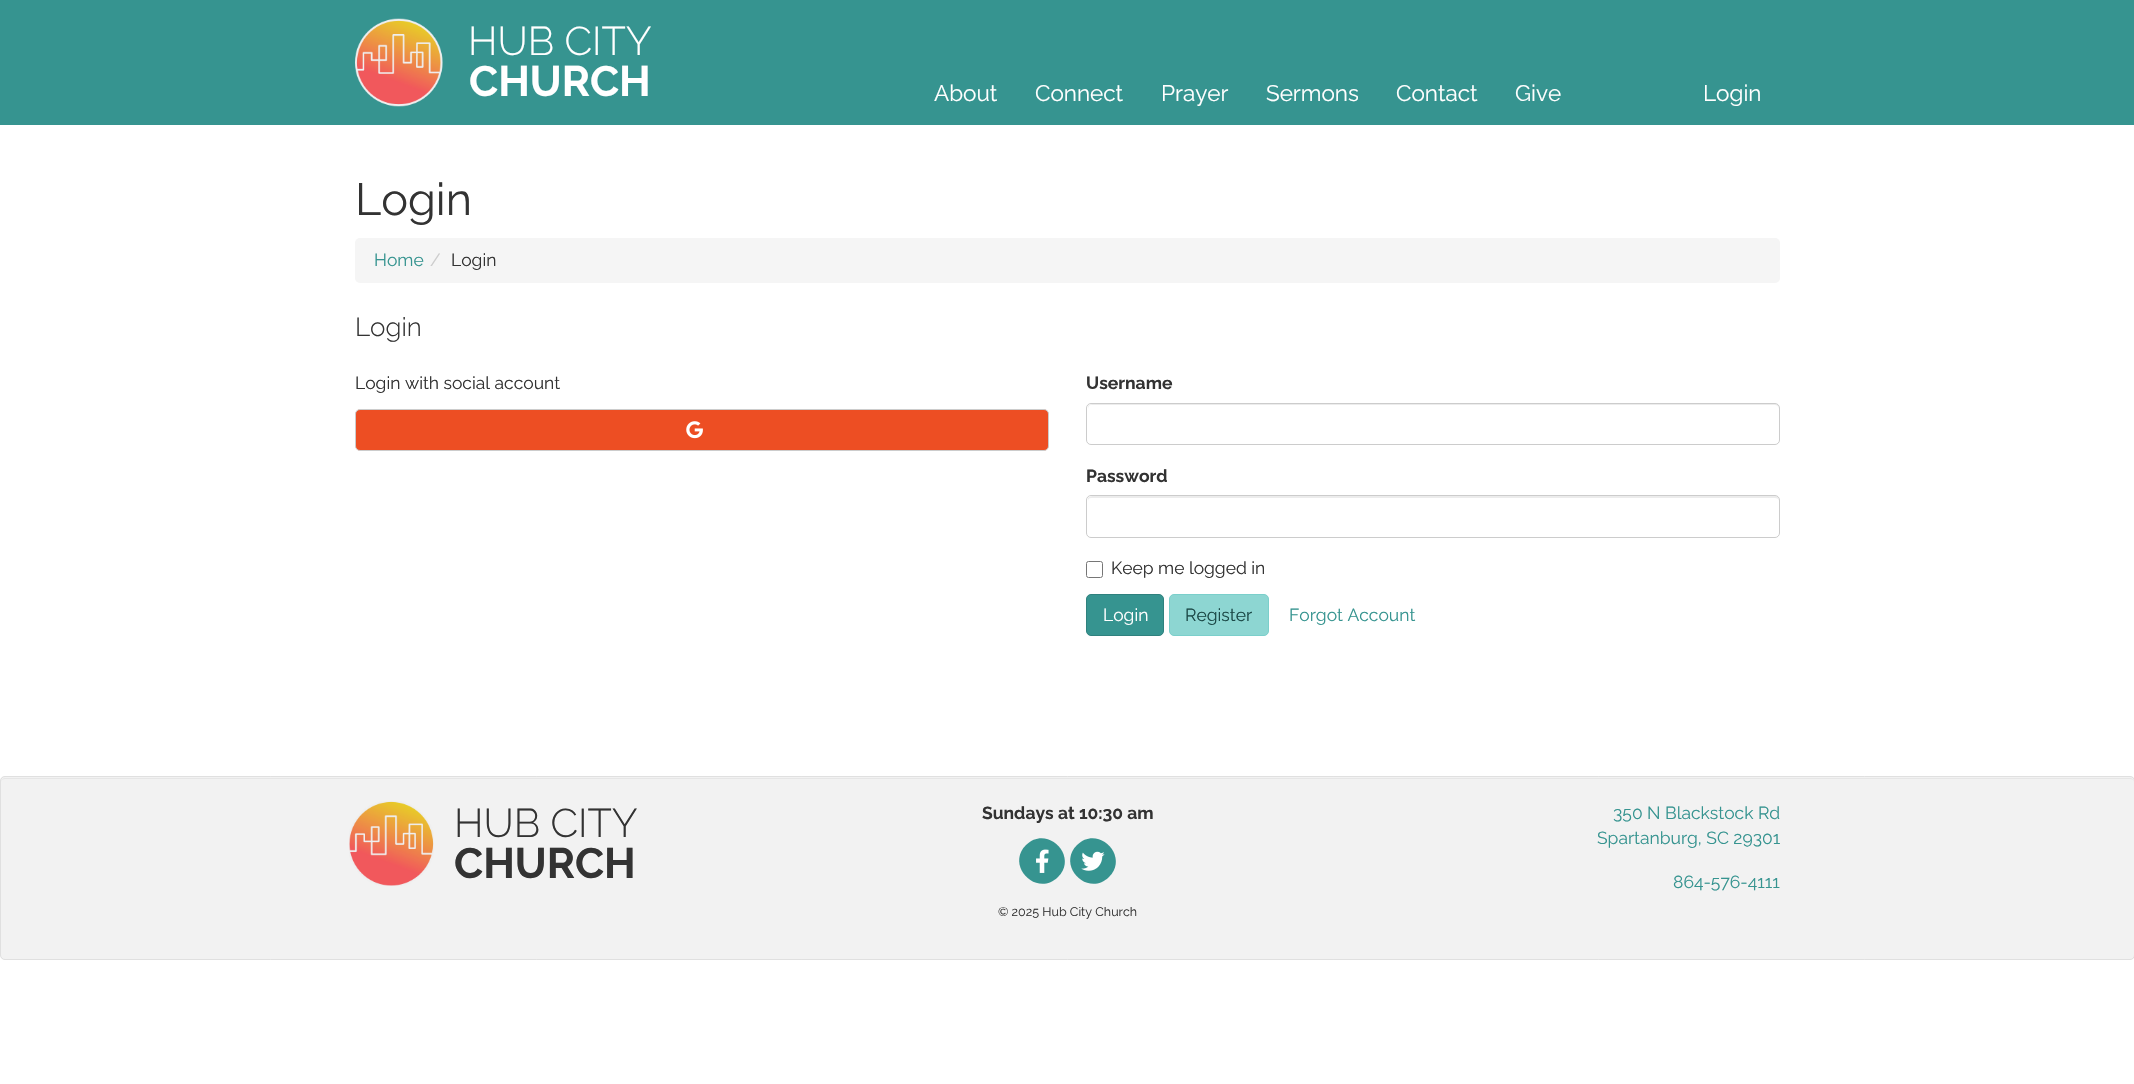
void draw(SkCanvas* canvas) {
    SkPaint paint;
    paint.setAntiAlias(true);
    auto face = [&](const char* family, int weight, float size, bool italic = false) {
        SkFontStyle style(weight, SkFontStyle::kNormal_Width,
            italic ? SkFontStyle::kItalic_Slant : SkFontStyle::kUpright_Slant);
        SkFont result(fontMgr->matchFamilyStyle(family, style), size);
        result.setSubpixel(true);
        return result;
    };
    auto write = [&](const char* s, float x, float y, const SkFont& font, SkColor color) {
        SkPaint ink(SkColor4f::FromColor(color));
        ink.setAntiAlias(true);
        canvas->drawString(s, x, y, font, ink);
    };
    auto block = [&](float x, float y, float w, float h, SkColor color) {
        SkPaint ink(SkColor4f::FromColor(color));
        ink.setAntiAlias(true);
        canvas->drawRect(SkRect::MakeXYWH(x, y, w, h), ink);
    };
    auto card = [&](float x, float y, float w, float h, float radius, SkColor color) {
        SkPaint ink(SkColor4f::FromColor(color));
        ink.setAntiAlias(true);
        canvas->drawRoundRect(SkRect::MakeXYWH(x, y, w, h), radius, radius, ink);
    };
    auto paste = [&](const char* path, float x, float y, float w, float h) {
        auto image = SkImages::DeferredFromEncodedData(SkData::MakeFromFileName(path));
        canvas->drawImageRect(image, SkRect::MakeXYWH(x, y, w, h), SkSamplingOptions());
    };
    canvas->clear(SK_ColorWHITE);
    block(0, 0, 2134, 125, SkColorSetRGB(54, 148, 144));
    paste("pic1.png", 355, 18, 88, 89);
    auto kFont1 = face("Raleway", 300, 40);
    write("HUB CITY", 468, 55, kFont1, SK_ColorWHITE);
    auto kFont2 = face("Raleway", 700, 42.5f);
    write("CHURCH", 469, 96, kFont2, SK_ColorWHITE);
    auto kFont3 = face("Raleway", 400, 22.5f);
    write("About", 934, 101, kFont3, SK_ColorWHITE);
    write("Connect", 1035, 101, kFont3, SK_ColorWHITE);
    write("Prayer", 1161, 101, kFont3, SK_ColorWHITE);
    write("Sermons", 1266, 101, kFont3, SK_ColorWHITE);
    write("Contact", 1396, 101, kFont3, SK_ColorWHITE);
    write("Give", 1515, 101, kFont3, SK_ColorWHITE);
    write("Login", 1703, 101, kFont3, SK_ColorWHITE);
    auto kFont4 = face("Raleway", 400, 45);
    write("Login", 355, 215, kFont4, SkColorSetRGB(51, 51, 51));
    card(355, 238, 1425, 45, 5, SkColorSetRGB(245, 245, 245));
    auto kFont5 = face("Raleway", 400, 17.5f);
    write("Home", 374, 266, kFont5, SkColorSetRGB(54, 148, 144));
    write("/", 430, 266, kFont5, SkColorSetRGB(204, 204, 204));
    write("Login", 451, 266, kFont5, SkColorSetRGB(51, 51, 51));
    auto kFont6 = face("Raleway", 300, 26);
    write("Login", 355, 336, kFont6, SkColorSetRGB(51, 51, 51));
    write("Login with social account", 355, 389, kFont5, SkColorSetRGB(51, 51, 51));
    paint.setColor(SkColorSetRGB(237, 78, 35));
    canvas->drawRoundRect(SkRect::MakeXYWH(355.5f, 409.5f, 693, 41), 4.5f, 4.5f, paint);
    paint.setStyle(SkPaint::kStroke_Style);
    paint.setStrokeWidth(1);
    paint.setColor(SkColorSetRGB(204, 204, 204));
    canvas->drawRoundRect(SkRect::MakeXYWH(355.5f, 409.5f, 693, 41), 4.5f, 4.5f, paint);
    paste("pic2.png", 686, 421, 17, 18);
    auto kFont7 = face("Raleway", 700, 17.5f);
    write("Username", 1086, 389, kFont7, SkColorSetRGB(51, 51, 51));
    paint.setStyle(SkPaint::kFill_Style);
    paint.setColor(SkColorSetRGB(236, 236, 236));
    canvas->drawPath(SkPathBuilder().moveTo(1091, 405).lineTo(1775, 405).cubicTo(1777, 405, 1779, 407, 1779, 409).cubicTo(1779, 406, 1778, 404, 1775, 404).lineTo(1092, 404).lineTo(1089, 405).lineTo(1088, 406).lineTo(1088, 409).cubicTo(1088, 407, 1089, 405, 1091, 405).close().detach(), paint);
    paint.setStyle(SkPaint::kStroke_Style);
    paint.setColor(SkColorSetRGB(204, 204, 204));
    canvas->drawRoundRect(SkRect::MakeXYWH(1086.5f, 403.5f, 693, 41), 4.5f, 4.5f, paint);
    write("Password", 1086, 482, kFont7, SkColorSetRGB(51, 51, 51));
    paint.setStyle(SkPaint::kFill_Style);
    paint.setColor(SkColorSetRGB(236, 236, 236));
    canvas->drawPath(SkPathBuilder().moveTo(1091, 498).lineTo(1775, 498).cubicTo(1777, 498, 1779, 499, 1779, 501).cubicTo(1779, 498, 1778, 496, 1775, 496).lineTo(1092, 496).lineTo(1089, 497).lineTo(1088, 498).lineTo(1088, 501).cubicTo(1088, 499, 1089, 498, 1091, 498).close().detach(), paint);
    paint.setStyle(SkPaint::kStroke_Style);
    paint.setColor(SkColorSetRGB(204, 204, 204));
    canvas->drawRoundRect(SkRect::MakeXYWH(1086.5f, 495.5f, 693, 42), 4.5f, 4.5f, paint);
    paint.setColor(SkColorSetRGB(118, 118, 118));
    canvas->drawRoundRect(SkRect::MakeXYWH(1086.5f, 561.5f, 16, 16), 2, 2, paint);
    write("Keep me logged in", 1111, 574, kFont5, SkColorSetRGB(51, 51, 51));
    paint.setStyle(SkPaint::kFill_Style);
    paint.setColor(SkColorSetRGB(54, 148, 144));
    canvas->drawRoundRect(SkRect::MakeXYWH(1086.5f, 594.5f, 77, 41), 4.5f, 4.5f, paint);
    paint.setStyle(SkPaint::kStroke_Style);
    paint.setColor(SkColorSetRGB(47, 129, 126));
    canvas->drawRoundRect(SkRect::MakeXYWH(1086.5f, 594.5f, 77, 41), 4.5f, 4.5f, paint);
    write("Login", 1103, 621, kFont5, SK_ColorWHITE);
    paint.setStyle(SkPaint::kFill_Style);
    paint.setColor(SkColorSetRGB(141, 214, 210));
    canvas->drawRoundRect(SkRect::MakeXYWH(1169.5f, 594.5f, 99, 41), 4.5f, 4.5f, paint);
    paint.setStyle(SkPaint::kStroke_Style);
    paint.setColor(SkColorSetRGB(123, 207, 203));
    canvas->drawRoundRect(SkRect::MakeXYWH(1169.5f, 594.5f, 99, 41), 4.5f, 4.5f, paint);
    write("Register", 1185, 621, kFont5, SkColorSetRGB(27, 73, 71));
    write("Forgot Account", 1289, 621, kFont5, SkColorSetRGB(54, 148, 144));
    card(0, 776, 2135, 184, 5, SkColorSetRGB(242, 242, 242));
    paint.setStyle(SkPaint::kFill_Style);
    paint.setColor(SkColorSetRGB(230, 230, 230));
    canvas->drawPath(SkPathBuilder().moveTo(5, 779).lineTo(2130, 779).cubicTo(2132, 779, 2134, 780, 2134, 782).cubicTo(2134, 780, 2132, 778, 2130, 778).lineTo(5, 778).cubicTo(3, 778, 1, 780, 1, 782).cubicTo(1, 780, 3, 779, 5, 779).close().detach(), paint);
    paint.setStyle(SkPaint::kStroke_Style);
    paint.setColor(SkColorSetRGB(224, 224, 224));
    canvas->drawRoundRect(SkRect::MakeXYWH(0.5f, 776.5f, 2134, 183), 4.5f, 4.5f, paint);
    paste("pic3.png", 349, 801, 85, 85);
    write("HUB CITY", 454, 837, kFont1, SkColorSetRGB(51, 51, 51));
    write("CHURCH", 454, 878, kFont2, SkColorSetRGB(51, 51, 51));
    write("Sundays at 10:30 am", 982, 819, kFont7, SkColorSetRGB(51, 51, 51));
    paint.setStyle(SkPaint::kFill_Style);
    paint.setColor(SkColorSetRGB(54, 148, 144));
    canvas->drawPath(SkPathBuilder().moveTo(1026, 845).cubicTo(1047, 824, 1079, 856, 1058, 877).cubicTo(1037, 898, 1005, 866, 1026, 845).close().detach(), paint);
    paste("pic4.png", 1036, 849, 13, 24);
    canvas->drawPath(SkPathBuilder().moveTo(1077, 845).cubicTo(1098, 824, 1130, 856, 1109, 877).cubicTo(1088, 898, 1056, 866, 1077, 845).close().detach(), paint);
    paste("pic5.png", 1081, 851, 24, 20);
    auto kFont8 = face("Raleway", 400, 12.5f);
    write("© 2025 Hub City Church", 998, 916, kFont8, SkColorSetRGB(51, 51, 51));
    write("350 N Blackstock Rd", 1613, 819, kFont5, SkColorSetRGB(54, 148, 144));
    write("Spartanburg, SC 29301", 1597, 844, kFont5, SkColorSetRGB(54, 148, 144));
    write("864-576-4111", 1673, 888, kFont5, SkColorSetRGB(54, 148, 144));
}
